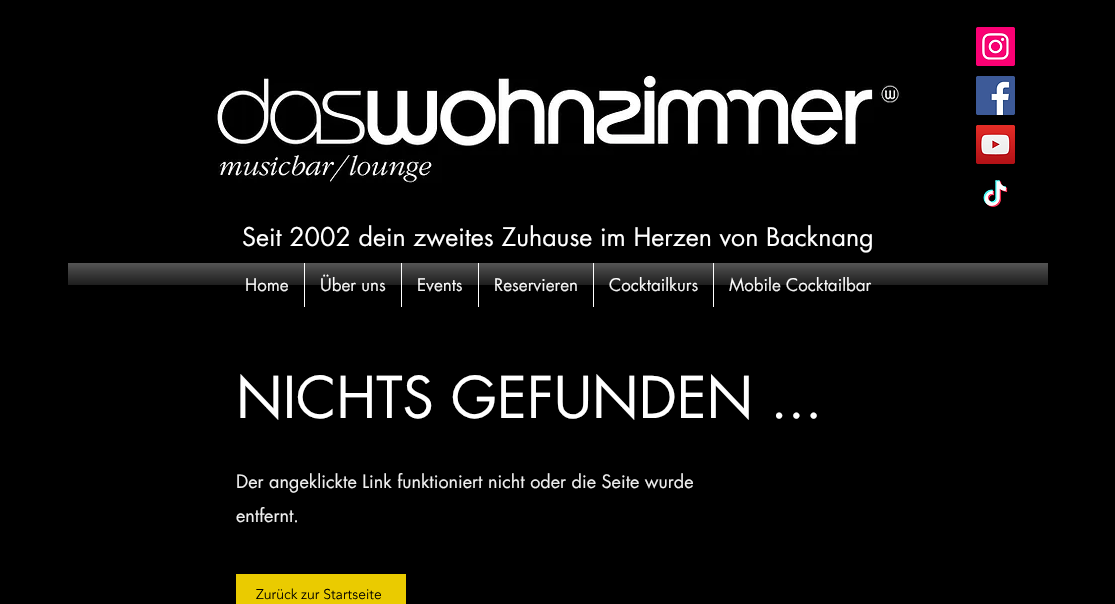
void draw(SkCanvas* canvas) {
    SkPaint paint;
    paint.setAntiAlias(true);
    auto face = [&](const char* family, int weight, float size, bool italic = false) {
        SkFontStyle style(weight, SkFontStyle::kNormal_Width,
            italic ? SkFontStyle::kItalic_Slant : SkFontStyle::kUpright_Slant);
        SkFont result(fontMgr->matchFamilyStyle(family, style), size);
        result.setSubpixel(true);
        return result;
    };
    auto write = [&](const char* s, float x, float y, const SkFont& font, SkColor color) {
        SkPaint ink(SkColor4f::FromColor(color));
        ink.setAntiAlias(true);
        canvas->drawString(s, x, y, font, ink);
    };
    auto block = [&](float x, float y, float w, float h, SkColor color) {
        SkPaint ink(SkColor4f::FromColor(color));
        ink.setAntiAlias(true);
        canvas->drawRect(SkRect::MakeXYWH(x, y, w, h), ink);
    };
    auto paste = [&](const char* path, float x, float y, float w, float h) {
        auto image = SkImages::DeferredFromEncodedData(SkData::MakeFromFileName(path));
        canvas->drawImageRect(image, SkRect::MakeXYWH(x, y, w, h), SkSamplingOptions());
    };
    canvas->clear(SK_ColorBLACK);
    paste("pic1.png", 214, 75, 688, 108);
    paste("pic2.png", 976, 27, 39, 39);
    paste("pic3.png", 976, 76, 39, 39);
    paste("pic4.png", 976, 125, 39, 39);
    paste("pic5.png", 983, 180, 25, 27);
    auto kFont1 = face("futura", 400, 25);
    write("Seit 2002 dein zweites Zuhause im Herzen von Backnang", 242, 246, kFont1, SK_ColorWHITE);
    paste("pic6.png", 68, 263, 980, 22);
    block(230, 263, 74, 22, SK_ColorBLACK);
    auto kFont2 = face("futura", 400, 17);
    write("Home", 245, 291, kFont2, SK_ColorWHITE);
    paste("pic7.png", 230, 263, 74, 28);
    block(305, 263, 96, 22, SK_ColorBLACK);
    block(304, 263, 1, 44, SK_ColorWHITE);
    write("Über uns", 320, 291, kFont2, SK_ColorWHITE);
    paste("pic8.png", 305, 263, 96, 28);
    block(402, 263, 76, 22, SK_ColorBLACK);
    block(401, 263, 1, 44, SK_ColorWHITE);
    write("Events", 417, 291, kFont2, SK_ColorWHITE);
    paste("pic9.png", 402, 263, 76, 28);
    block(479, 263, 114, 22, SK_ColorBLACK);
    block(478, 263, 1, 44, SK_ColorWHITE);
    write("Reservieren", 494, 291, kFont2, SK_ColorWHITE);
    paste("pic10.png", 479, 263, 114, 28);
    block(594, 263, 119, 22, SK_ColorBLACK);
    block(593, 263, 1, 44, SK_ColorWHITE);
    write("Cocktailkurs", 609, 291, kFont2, SK_ColorWHITE);
    paste("pic11.png", 594, 263, 119, 28);
    block(714, 263, 172, 22, SK_ColorBLACK);
    block(713, 263, 1, 44, SK_ColorWHITE);
    write("Mobile Cocktailbar", 729, 291, kFont2, SK_ColorWHITE);
    paste("pic12.png", 714, 263, 172, 28);
    auto kFont3 = face("futura", 400, 56);
    write("NICHTS GEFUNDEN ...", 236, 418, kFont3, SK_ColorWHITE);
    auto kFont4 = face("futura", 400, 18);
    write("Der angeklickte Link funktioniert nicht oder die Seite wurde", 236, 488, kFont4, SkColorSetRGB(239, 239, 239));
    write("entfernt.", 236, 522, kFont4, SkColorSetRGB(239, 239, 239));
    block(236, 574, 170, 30, SkColorSetRGB(234, 203, 0));
    auto kFont5 = face("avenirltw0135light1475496", 300, 14);
    write("Zurück zur Startseite", 256, 599, kFont5, SK_ColorBLACK);
}
